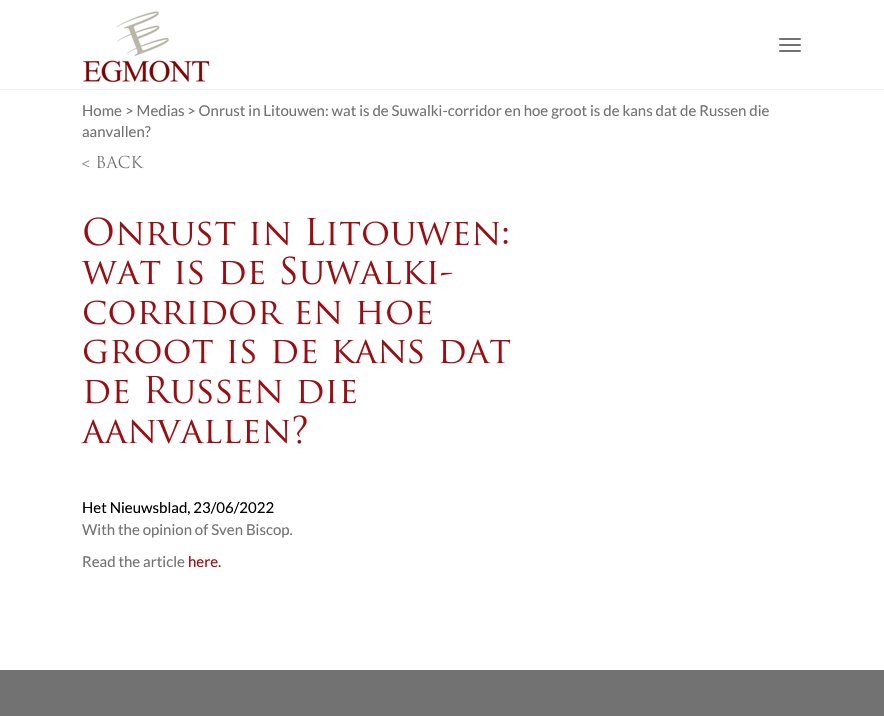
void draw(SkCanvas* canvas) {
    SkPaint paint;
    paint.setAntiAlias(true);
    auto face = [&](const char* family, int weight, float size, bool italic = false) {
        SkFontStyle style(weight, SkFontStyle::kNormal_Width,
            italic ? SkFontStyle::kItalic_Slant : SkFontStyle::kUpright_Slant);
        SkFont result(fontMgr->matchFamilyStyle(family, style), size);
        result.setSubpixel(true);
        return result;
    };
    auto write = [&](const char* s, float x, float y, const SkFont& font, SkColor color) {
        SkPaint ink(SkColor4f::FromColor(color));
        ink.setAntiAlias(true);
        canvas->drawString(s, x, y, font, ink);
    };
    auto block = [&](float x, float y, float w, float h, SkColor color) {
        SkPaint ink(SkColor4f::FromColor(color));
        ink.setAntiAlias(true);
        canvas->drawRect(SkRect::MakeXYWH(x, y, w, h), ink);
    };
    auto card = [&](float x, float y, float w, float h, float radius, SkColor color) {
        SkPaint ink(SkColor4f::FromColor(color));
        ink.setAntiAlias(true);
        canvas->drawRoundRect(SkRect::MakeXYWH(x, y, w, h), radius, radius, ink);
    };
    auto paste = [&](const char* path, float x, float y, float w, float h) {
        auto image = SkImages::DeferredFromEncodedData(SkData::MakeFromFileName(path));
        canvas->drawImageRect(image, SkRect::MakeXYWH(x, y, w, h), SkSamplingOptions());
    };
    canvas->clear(SK_ColorWHITE);
    block(0, 89, 884, 1, SkColorSetRGB(238, 238, 238));
    paste("pic1.png", 83, 11, 128, 73);
    card(779, 38, 22, 2, 1, SkColorSetRGB(114, 114, 114));
    card(779, 44, 22, 2, 1, SkColorSetRGB(114, 114, 114));
    card(779, 50, 22, 2, 1, SkColorSetRGB(114, 114, 114));
    auto kFont1 = face("Lato", 400, 15);
    write("Home", 82, 116, kFont1, SkColorSetRGB(114, 114, 114));
    write("> Medias", 125, 116, kFont1, SkColorSetRGB(114, 114, 114));
    write("> Onrust in Litouwen: wat is de Suwalki-corridor en hoe groot is de kans dat de Russen die", 187, 116, kFont1, SkColorSetRGB(114, 114, 114));
    write("aanvallen?", 82, 137, kFont1, SkColorSetRGB(114, 114, 114));
    paste("pic2.png", 82, 155, 62, 14);
    paste("pic3.png", 84, 217, 424, 29);
    paste("pic4.png", 81, 256, 372, 29);
    paste("pic5.png", 84, 300, 348, 25);
    paste("pic6.png", 84, 339, 427, 25);
    paste("pic7.png", 84, 375, 272, 29);
    paste("pic8.png", 81, 415, 226, 29);
    write("Het Nieuwsblad, 23/06/2022", 82, 513, kFont1, SK_ColorBLACK);
    write("With the opinion of Sven Biscop.", 82, 535, kFont1, SkColorSetRGB(114, 114, 114));
    write("Read the article", 82, 567, kFont1, SkColorSetRGB(114, 114, 114));
    write("here.", 188, 567, kFont1, SkColorSetRGB(152, 14, 19));
    block(0, 670, 884, 46, SkColorSetRGB(114, 114, 114));
}
